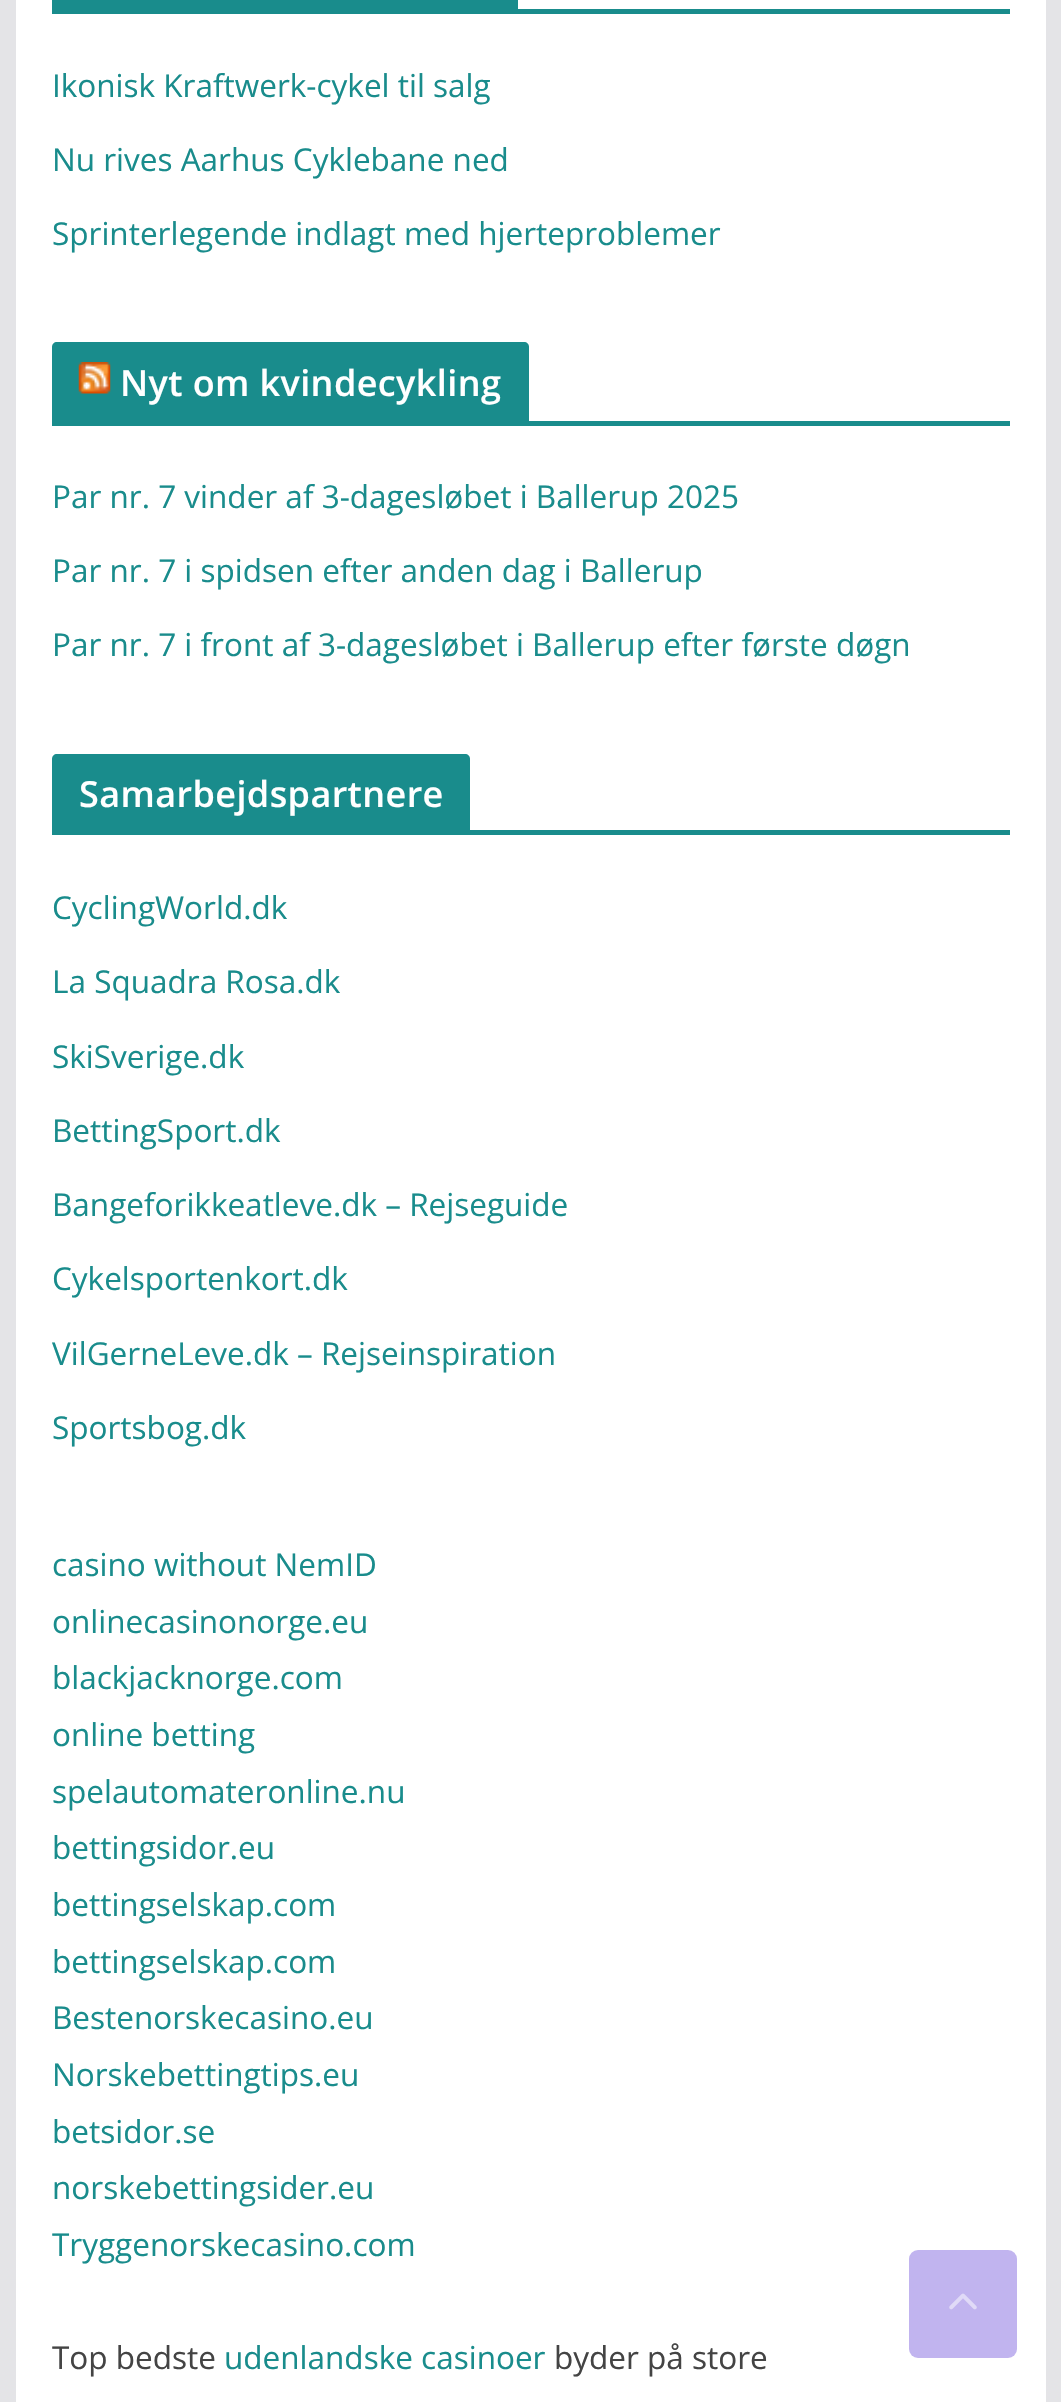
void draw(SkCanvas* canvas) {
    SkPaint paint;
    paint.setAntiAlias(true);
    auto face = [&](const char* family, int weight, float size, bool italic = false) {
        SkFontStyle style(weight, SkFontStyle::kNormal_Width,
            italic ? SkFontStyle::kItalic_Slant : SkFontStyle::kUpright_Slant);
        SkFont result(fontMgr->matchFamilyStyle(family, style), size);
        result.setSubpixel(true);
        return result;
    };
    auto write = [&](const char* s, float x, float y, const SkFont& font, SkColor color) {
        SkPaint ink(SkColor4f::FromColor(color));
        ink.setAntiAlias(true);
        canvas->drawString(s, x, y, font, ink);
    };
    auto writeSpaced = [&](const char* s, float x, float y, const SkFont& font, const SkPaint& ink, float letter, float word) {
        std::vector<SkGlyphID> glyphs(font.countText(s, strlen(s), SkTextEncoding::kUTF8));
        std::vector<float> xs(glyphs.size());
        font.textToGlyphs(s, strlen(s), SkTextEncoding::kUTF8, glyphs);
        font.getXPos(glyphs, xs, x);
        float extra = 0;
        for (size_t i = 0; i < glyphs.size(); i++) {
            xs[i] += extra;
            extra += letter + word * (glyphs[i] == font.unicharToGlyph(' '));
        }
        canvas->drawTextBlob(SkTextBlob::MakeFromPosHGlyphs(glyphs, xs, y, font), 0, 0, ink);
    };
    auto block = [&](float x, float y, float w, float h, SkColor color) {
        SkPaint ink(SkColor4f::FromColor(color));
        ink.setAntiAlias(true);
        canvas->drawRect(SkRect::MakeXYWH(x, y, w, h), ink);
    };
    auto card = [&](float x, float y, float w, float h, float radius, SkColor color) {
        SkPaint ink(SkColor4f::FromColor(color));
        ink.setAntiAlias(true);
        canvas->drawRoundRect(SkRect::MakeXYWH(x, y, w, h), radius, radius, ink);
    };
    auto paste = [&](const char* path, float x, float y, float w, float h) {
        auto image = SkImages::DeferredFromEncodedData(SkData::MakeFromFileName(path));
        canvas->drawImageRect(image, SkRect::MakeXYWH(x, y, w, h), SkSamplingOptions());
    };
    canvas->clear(SkColorSetRGB(228, 228, 231));
    block(16, 0, 1030, 2402, SK_ColorWHITE);
    block(52, 9, 958, 5, SkColorSetRGB(25, 140, 140));
    block(52, 0, 466, 9, SkColorSetRGB(25, 140, 140));
    auto kFont1 = face("Open Sans", 400, 31.5f);
    write("Ikonisk Kraftwerk-cykel til salg", 52, 97, kFont1, SkColorSetRGB(25, 140, 140));
    write("Nu rives Aarhus Cyklebane ned", 52, 171, kFont1, SkColorSetRGB(25, 140, 140));
    write("Sprinterlegende indlagt med hjerteproblemer", 52, 245, kFont1, SkColorSetRGB(25, 140, 140));
    block(52, 421, 958, 5, SkColorSetRGB(25, 140, 140));
    paint.setColor(SkColorSetRGB(25, 140, 140));
    canvas->drawPath(SkPathBuilder().moveTo(57, 342).lineTo(524, 342).cubicTo(527, 342, 529, 344, 529, 347).lineTo(529, 421).lineTo(52, 421).lineTo(52, 347).cubicTo(52, 344, 54, 342, 57, 342).close().detach(), paint);
    paste("pic1.png", 78, 362, 33, 32);
    auto kFont2 = face("Open Sans", 600, 36);
    paint.setColor(SK_ColorWHITE);
    writeSpaced("Nyt om kvindecykling", 120, 396, kFont2, paint, 0.4f, 0);
    write("Par nr. 7 vinder af 3-dagesløbet i Ballerup 2025", 52, 508, kFont1, SkColorSetRGB(25, 140, 140));
    write("Par nr. 7 i spidsen efter anden dag i Ballerup", 52, 582, kFont1, SkColorSetRGB(25, 140, 140));
    write("Par nr. 7 i front af 3-dagesløbet i Ballerup efter første døgn", 52, 656, kFont1, SkColorSetRGB(25, 140, 140));
    block(52, 830, 958, 5, SkColorSetRGB(25, 140, 140));
    paint.setColor(SkColorSetRGB(25, 140, 140));
    canvas->drawPath(SkPathBuilder().moveTo(57, 754).lineTo(465, 754).cubicTo(468, 754, 470, 756, 470, 759).lineTo(470, 830).lineTo(52, 830).lineTo(52, 759).cubicTo(52, 756, 54, 754, 57, 754).close().detach(), paint);
    paint.setColor(SK_ColorWHITE);
    writeSpaced("Samarbejdspartnere", 79, 807, kFont2, paint, 0.4f, 0);
    write("CyclingWorld.dk", 52, 919, kFont1, SkColorSetRGB(25, 140, 140));
    write("La Squadra Rosa.dk", 52, 993, kFont1, SkColorSetRGB(25, 140, 140));
    write("SkiSverige.dk", 52, 1068, kFont1, SkColorSetRGB(25, 140, 140));
    write("BettingSport.dk", 52, 1142, kFont1, SkColorSetRGB(25, 140, 140));
    write("Bangeforikkeatleve.dk – Rejseguide", 52, 1216, kFont1, SkColorSetRGB(25, 140, 140));
    write("Cykelsportenkort.dk", 52, 1290, kFont1, SkColorSetRGB(25, 140, 140));
    write("VilGerneLeve.dk – Rejseinspiration", 52, 1365, kFont1, SkColorSetRGB(25, 140, 140));
    write("Sportsbog.dk", 52, 1439, kFont1, SkColorSetRGB(25, 140, 140));
    write("casino without NemID", 52, 1576, kFont1, SkColorSetRGB(25, 140, 140));
    write("onlinecasinonorge.eu", 52, 1633, kFont1, SkColorSetRGB(25, 140, 140));
    write("blackjacknorge.com", 52, 1689, kFont1, SkColorSetRGB(25, 140, 140));
    write("online betting", 52, 1746, kFont1, SkColorSetRGB(25, 140, 140));
    write("spelautomateronline.nu", 52, 1803, kFont1, SkColorSetRGB(25, 140, 140));
    write("bettingsidor.eu", 52, 1859, kFont1, SkColorSetRGB(25, 140, 140));
    write("bettingselskap.com", 52, 1916, kFont1, SkColorSetRGB(25, 140, 140));
    write("bettingselskap.com", 52, 1973, kFont1, SkColorSetRGB(25, 140, 140));
    write("Bestenorskecasino.eu", 52, 2029, kFont1, SkColorSetRGB(25, 140, 140));
    write("Norskebettingtips.eu", 52, 2086, kFont1, SkColorSetRGB(25, 140, 140));
    write("betsidor.se", 52, 2143, kFont1, SkColorSetRGB(25, 140, 140));
    write("norskebettingsider.eu", 52, 2199, kFont1, SkColorSetRGB(25, 140, 140));
    write("Tryggenorskecasino.com", 52, 2256, kFont1, SkColorSetRGB(25, 140, 140));
    write("Top bedste", 52, 2369, kFont1, SkColorSetRGB(68, 68, 68));
    write("udenlandske casinoer", 224, 2369, kFont1, SkColorSetRGB(25, 140, 140));
    write("byder på store", 554, 2369, kFont1, SkColorSetRGB(68, 68, 68));
    card(909, 2250, 108, 108, 9, SkColorSetRGB(193, 180, 239));
    paste("pic2.png", 949, 2293, 28, 17);
}
